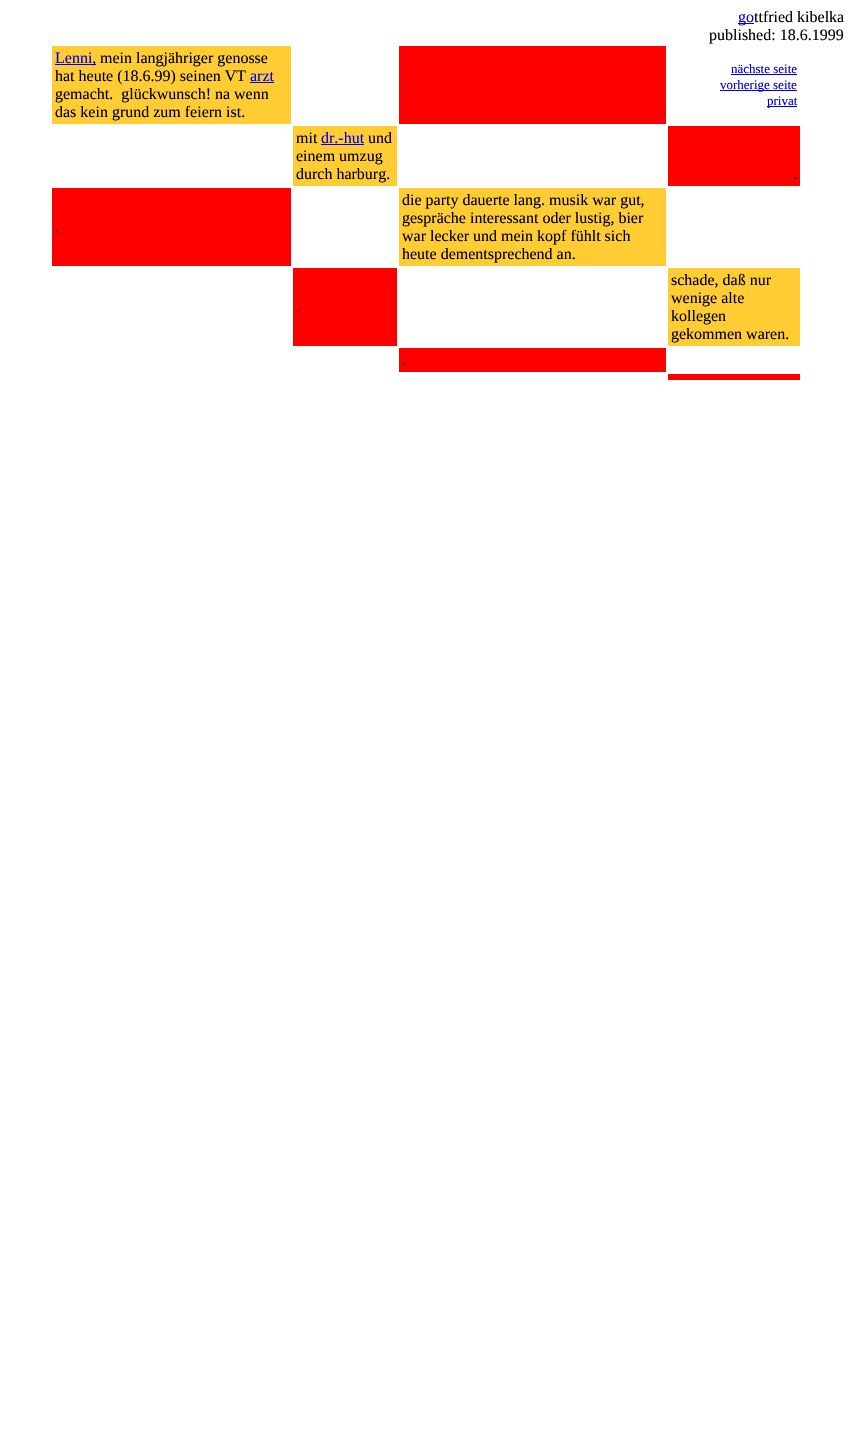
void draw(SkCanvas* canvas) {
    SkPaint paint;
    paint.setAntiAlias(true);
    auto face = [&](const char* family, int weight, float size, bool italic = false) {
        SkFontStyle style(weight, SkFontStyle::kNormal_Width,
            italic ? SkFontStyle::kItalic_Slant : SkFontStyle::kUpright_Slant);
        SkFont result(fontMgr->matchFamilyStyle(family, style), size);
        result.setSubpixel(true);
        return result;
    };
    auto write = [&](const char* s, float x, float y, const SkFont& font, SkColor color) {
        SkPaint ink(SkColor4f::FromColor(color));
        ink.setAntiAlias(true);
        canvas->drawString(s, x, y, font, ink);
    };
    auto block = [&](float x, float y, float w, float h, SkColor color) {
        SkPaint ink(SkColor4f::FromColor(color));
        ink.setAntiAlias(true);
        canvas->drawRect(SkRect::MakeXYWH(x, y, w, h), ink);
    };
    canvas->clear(SK_ColorWHITE);
    block(738, 23, 16, 1, SkColorSetRGB(0, 0, 238));
    auto kFont1 = face("Liberation Serif", 400, 16);
    write("go", 738, 22, kFont1, SkColorSetRGB(0, 0, 238));
    write("ttfried kibelka", 754, 22, kFont1, SK_ColorBLACK);
    write("published: 18.6.1999", 709, 40, kFont1, SK_ColorBLACK);
    block(52, 46, 239, 78, SkColorSetRGB(255, 204, 51));
    block(55, 64, 41, 1, SkColorSetRGB(0, 0, 238));
    write("Lenni,", 55, 63, kFont1, SkColorSetRGB(0, 0, 238));
    write("mein langjähriger genosse", 100, 63, kFont1, SK_ColorBLACK);
    write("hat heute (18.6.99) seinen VT", 55, 81, kFont1, SK_ColorBLACK);
    write("arzt", 250, 81, kFont1, SkColorSetRGB(0, 0, 238));
    block(250, 82, 24, 1, SkColorSetRGB(0, 0, 238));
    write("gemacht.  glückwunsch! na wenn", 55, 99, kFont1, SK_ColorBLACK);
    write("das kein grund zum feiern ist.", 55, 117, kFont1, SK_ColorBLACK);
    block(399, 46, 267, 78, SkColorSetRGB(255, 0, 0));
    auto kFont2 = face("Liberation Serif", 400, 10);
    write(".", 402, 89, kFont2, SK_ColorBLACK);
    auto kFont3 = face("Liberation Serif", 400, 13);
    write("nächste seite", 731, 73, kFont3, SkColorSetRGB(0, 0, 238));
    block(731, 74, 66, 1, SkColorSetRGB(0, 0, 238));
    block(720, 90, 77, 1, SkColorSetRGB(0, 0, 238));
    write("vorherige seite", 720, 89, kFont3, SkColorSetRGB(0, 0, 238));
    block(767, 106, 30, 1, SkColorSetRGB(0, 0, 238));
    write("privat", 767, 105, kFont3, SkColorSetRGB(0, 0, 238));
    block(293, 126, 104, 60, SkColorSetRGB(255, 204, 51));
    write("mit", 296, 143, kFont1, SK_ColorBLACK);
    write("dr.-hut", 321, 143, kFont1, SkColorSetRGB(0, 0, 238));
    block(321, 144, 43, 1, SkColorSetRGB(0, 0, 238));
    write("und", 368, 143, kFont1, SK_ColorBLACK);
    write("einem umzug", 296, 161, kFont1, SK_ColorBLACK);
    write("durch harburg.", 296, 179, kFont1, SK_ColorBLACK);
    block(668, 126, 132, 60, SkColorSetRGB(255, 0, 0));
    write(".", 793, 179, kFont1, SK_ColorBLACK);
    block(52, 188, 239, 78, SkColorSetRGB(255, 0, 0));
    write(".", 55, 232, kFont1, SK_ColorBLACK);
    block(399, 188, 267, 78, SkColorSetRGB(255, 204, 51));
    write("die party dauerte lang. musik war gut,", 402, 205, kFont1, SK_ColorBLACK);
    write("gespräche interessant oder lustig, bier", 402, 223, kFont1, SK_ColorBLACK);
    write("war lecker und mein kopf fühlt sich", 402, 241, kFont1, SK_ColorBLACK);
    write("heute dementsprechend an.", 402, 259, kFont1, SK_ColorBLACK);
    block(293, 268, 104, 78, SkColorSetRGB(255, 0, 0));
    write(".", 296, 312, kFont1, SK_ColorBLACK);
    block(668, 268, 132, 78, SkColorSetRGB(255, 204, 51));
    write("schade, daß nur", 671, 285, kFont1, SK_ColorBLACK);
    write("wenige alte", 671, 303, kFont1, SK_ColorBLACK);
    write("kollegen", 671, 321, kFont1, SK_ColorBLACK);
    write("gekommen waren.", 671, 339, kFont1, SK_ColorBLACK);
    block(399, 348, 267, 24, SkColorSetRGB(255, 0, 0));
    write(".", 402, 365, kFont1, SK_ColorBLACK);
    block(668, 374, 132, 6, SkColorSetRGB(255, 0, 0));
}
